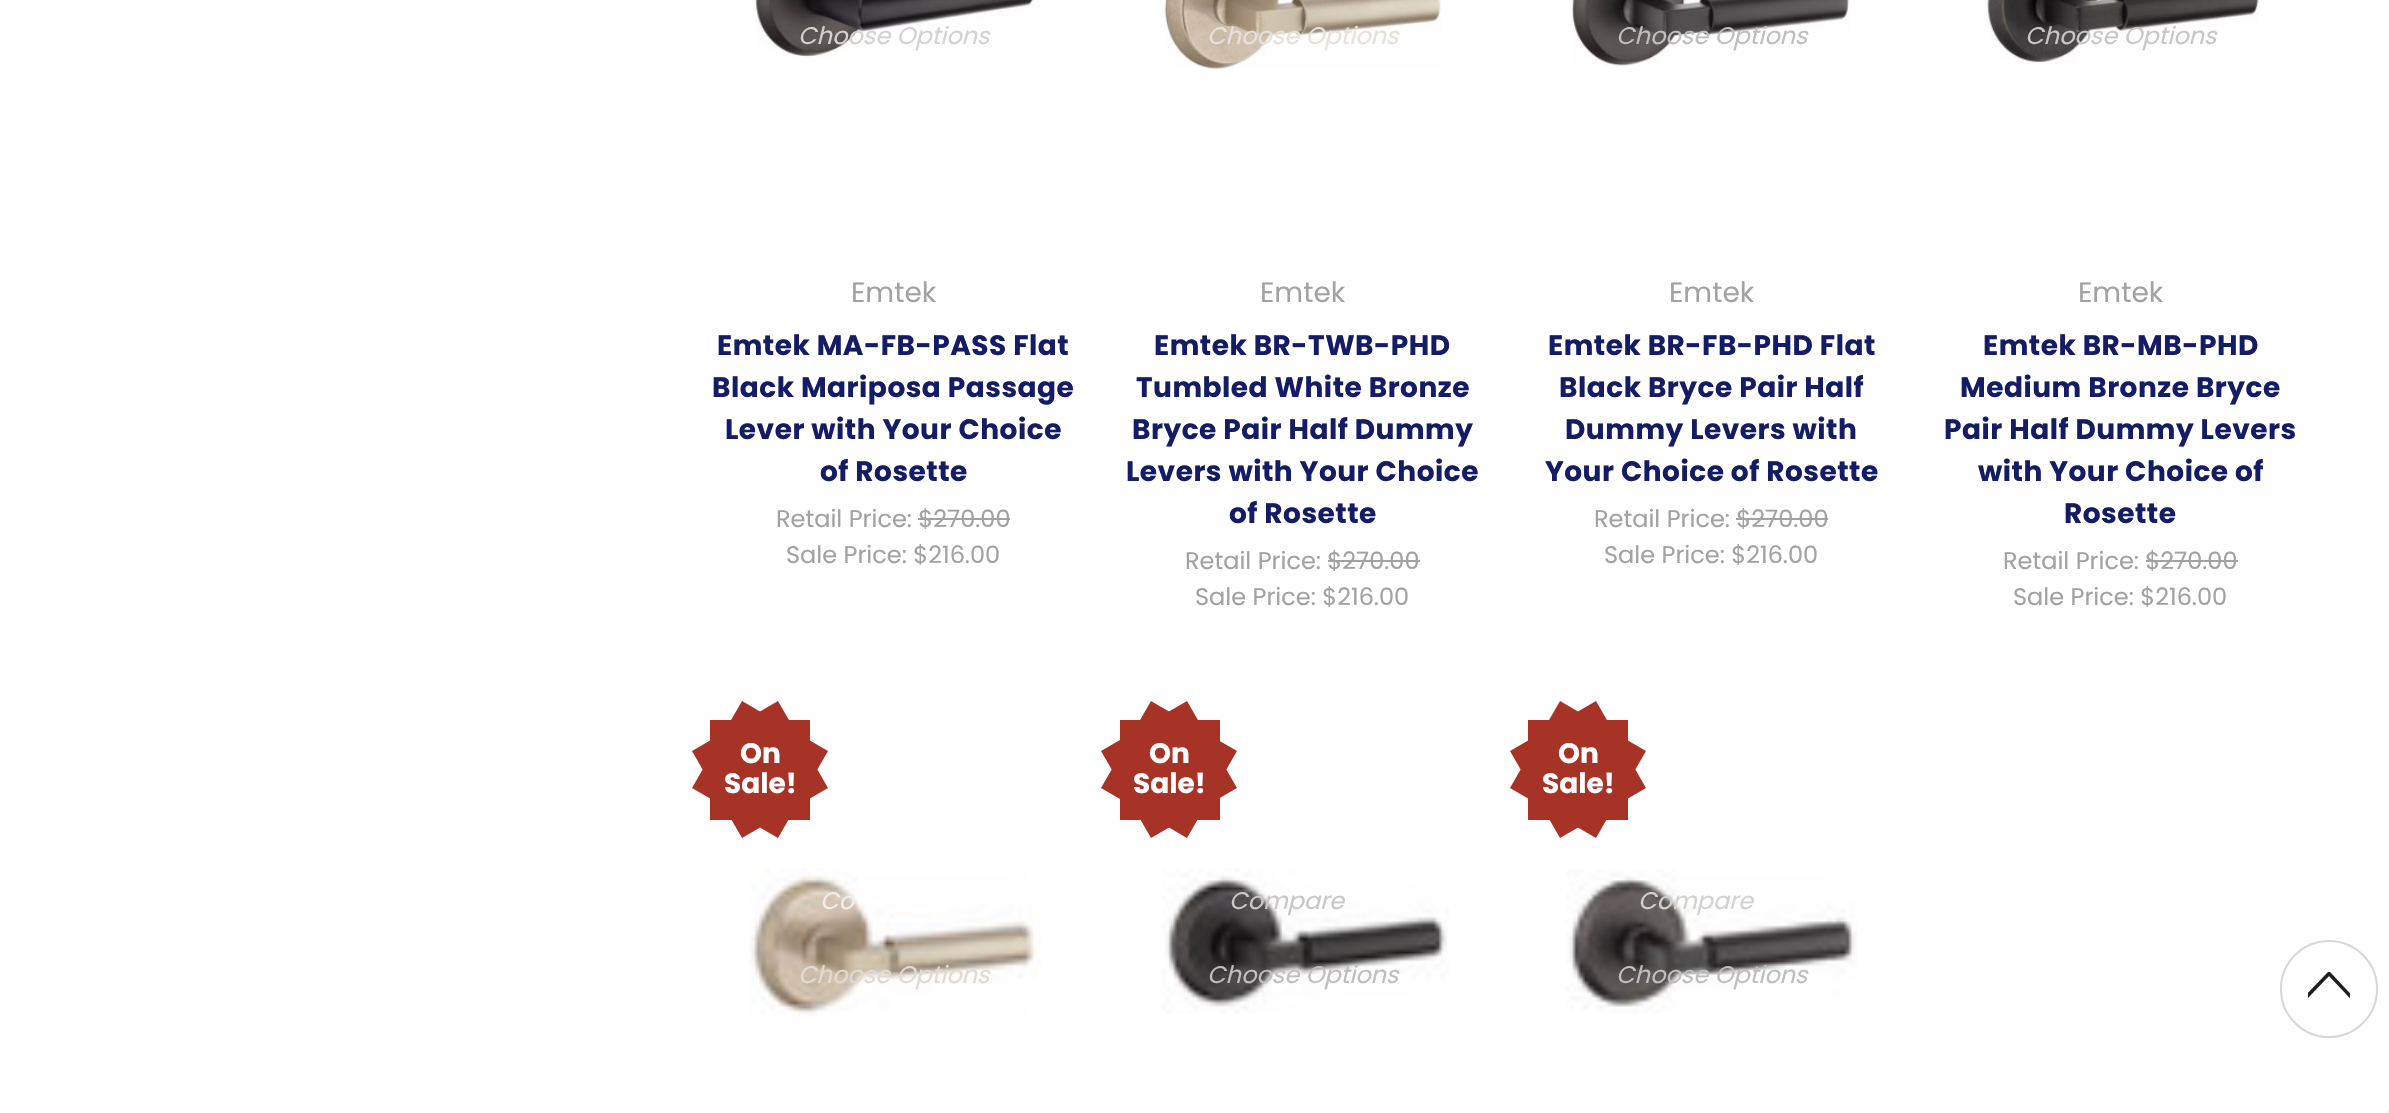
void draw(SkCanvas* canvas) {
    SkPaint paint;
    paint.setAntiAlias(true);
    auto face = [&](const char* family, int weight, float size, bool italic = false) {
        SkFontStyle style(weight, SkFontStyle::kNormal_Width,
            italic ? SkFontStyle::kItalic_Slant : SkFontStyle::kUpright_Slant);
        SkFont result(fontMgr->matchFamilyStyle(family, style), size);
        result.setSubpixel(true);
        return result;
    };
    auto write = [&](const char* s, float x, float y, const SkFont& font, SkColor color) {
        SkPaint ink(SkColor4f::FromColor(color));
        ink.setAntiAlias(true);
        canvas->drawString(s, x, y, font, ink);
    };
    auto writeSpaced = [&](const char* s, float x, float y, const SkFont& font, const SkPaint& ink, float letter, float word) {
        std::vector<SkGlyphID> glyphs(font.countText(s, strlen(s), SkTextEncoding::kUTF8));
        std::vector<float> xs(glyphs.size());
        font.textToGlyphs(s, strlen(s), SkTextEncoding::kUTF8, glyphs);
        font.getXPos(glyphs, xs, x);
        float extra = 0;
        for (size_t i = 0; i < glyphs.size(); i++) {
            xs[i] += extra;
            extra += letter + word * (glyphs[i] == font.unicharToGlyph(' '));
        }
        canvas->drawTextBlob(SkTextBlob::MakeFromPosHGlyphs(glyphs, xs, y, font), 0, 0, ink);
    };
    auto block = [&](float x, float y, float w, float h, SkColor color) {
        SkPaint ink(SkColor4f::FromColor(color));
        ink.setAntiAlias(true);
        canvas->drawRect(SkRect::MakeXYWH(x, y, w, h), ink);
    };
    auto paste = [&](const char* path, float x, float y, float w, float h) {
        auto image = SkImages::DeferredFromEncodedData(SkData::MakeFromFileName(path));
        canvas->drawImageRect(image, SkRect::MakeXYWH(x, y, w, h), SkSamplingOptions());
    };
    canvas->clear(SK_ColorWHITE);
    paste("pic1.png", 755, 0, 280, 58);
    auto kFont1 = face("Poppins", 400, 24, true);
    write("Choose Options", 798, 44, kFont1, SkColorSetRGB(211, 210, 209));
    auto kFont2 = face("Poppins", 400, 28);
    write("Emtek", 851, 302, kFont2, SkColorSetRGB(162, 162, 162));
    auto kFont3 = face("Poppins", 700, 28);
    paint.setColor(SkColorSetRGB(21, 28, 102));
    writeSpaced("Emtek MA-FB-PASS Flat", 717, 355, kFont3, paint, 0.5f, 0);
    writeSpaced("Black Mariposa Passage", 712, 397, kFont3, paint, 0.5f, 0);
    writeSpaced("Lever with Your Choice", 725, 439, kFont3, paint, 0.5f, 0);
    writeSpaced("of Rosette", 820, 481, kFont3, paint, 0.5f, 0);
    auto kFont4 = face("Poppins", 400, 24);
    write("Retail Price: $270.00", 776, 527, kFont4, SkColorSetRGB(162, 162, 162));
    block(918, 518, 92, 2, SkColorSetRGB(162, 162, 162));
    write("Sale Price: $216.00", 786, 563, kFont4, SkColorSetRGB(162, 162, 162));
    paste("pic2.png", 1164, 0, 278, 70);
    write("Choose Options", 1207, 44, kFont1, SkColorSetRGB(231, 225, 218));
    write("Emtek", 1260, 302, kFont2, SkColorSetRGB(162, 162, 162));
    writeSpaced("Emtek BR-TWB-PHD", 1154, 355, kFont3, paint, 0.5f, 0);
    writeSpaced("Tumbled White Bronze", 1136, 397, kFont3, paint, 0.5f, 0);
    writeSpaced("Bryce Pair Half Dummy", 1132, 439, kFont3, paint, 0.5f, 0);
    writeSpaced("Levers with Your Choice", 1126, 481, kFont3, paint, 0.5f, 0);
    writeSpaced("of Rosette", 1229, 523, kFont3, paint, 0.5f, 0);
    write("Retail Price: $270.00", 1185, 569, kFont4, SkColorSetRGB(162, 162, 162));
    block(1328, 560, 92, 2, SkColorSetRGB(162, 162, 162));
    write("Sale Price: $216.00", 1195, 605, kFont4, SkColorSetRGB(162, 162, 162));
    paste("pic3.png", 1571, 0, 279, 67);
    write("Choose Options", 1616, 44, kFont1, SkColorSetRGB(191, 190, 190));
    write("Emtek", 1669, 302, kFont2, SkColorSetRGB(162, 162, 162));
    writeSpaced("Emtek BR-FB-PHD Flat", 1548, 355, kFont3, paint, 0.5f, 0);
    writeSpaced("Black Bryce Pair Half", 1559, 397, kFont3, paint, 0.5f, 0);
    writeSpaced("Dummy Levers with", 1565, 439, kFont3, paint, 0.5f, 0);
    writeSpaced("Your Choice of Rosette", 1545, 481, kFont3, paint, 0.5f, 0);
    write("Retail Price: $270.00", 1594, 527, kFont4, SkColorSetRGB(162, 162, 162));
    block(1736, 518, 92, 2, SkColorSetRGB(162, 162, 162));
    write("Sale Price: $216.00", 1604, 563, kFont4, SkColorSetRGB(162, 162, 162));
    paste("pic4.png", 1984, 0, 275, 65);
    write("Choose Options", 2025, 44, kFont1, SkColorSetRGB(200, 199, 200));
    write("Emtek", 2078, 302, kFont2, SkColorSetRGB(162, 162, 162));
    writeSpaced("Emtek BR-MB-PHD", 1983, 355, kFont3, paint, 0.5f, 0);
    writeSpaced("Medium Bronze Bryce", 1960, 397, kFont3, paint, 0.5f, 0);
    writeSpaced("Pair Half Dummy Levers", 1944, 439, kFont3, paint, 0.5f, 0);
    writeSpaced("with Your Choice of", 1978, 481, kFont3, paint, 0.5f, 0);
    writeSpaced("Rosette", 2064, 523, kFont3, paint, 0.5f, 0);
    write("Retail Price: $270.00", 2003, 569, kFont4, SkColorSetRGB(162, 162, 162));
    block(2146, 560, 92, 2, SkColorSetRGB(162, 162, 162));
    write("Sale Price: $216.00", 2013, 605, kFont4, SkColorSetRGB(162, 162, 162));
    block(710, 720, 100, 100, SkColorSetRGB(167, 50, 38));
    paint.setColor(SkColorSetRGB(167, 50, 38));
    canvas->drawPath(SkPathBuilder().moveTo(742, 701).lineTo(828, 751).lineTo(778, 838).lineTo(692, 788).close().detach(), paint);
    canvas->drawPath(SkPathBuilder().moveTo(778, 701).lineTo(828, 788).lineTo(742, 838).lineTo(692, 751).close().detach(), paint);
    write("On", 740, 763, kFont3, SK_ColorWHITE);
    write("Sale!", 724, 793, kFont3, SK_ColorWHITE);
    paste("pic5.png", 748, 868, 293, 148);
    write("Co", 820, 909, kFont1, SkColorSetRGB(242, 238, 234));
    write("Choose Options", 798, 983, kFont1, SkColorSetRGB(225, 218, 209));
    block(1120, 720, 100, 100, SkColorSetRGB(167, 50, 38));
    canvas->drawPath(SkPathBuilder().moveTo(1151, 701).lineTo(1237, 751).lineTo(1187, 838).lineTo(1101, 788).close().detach(), paint);
    canvas->drawPath(SkPathBuilder().moveTo(1187, 701).lineTo(1237, 788).lineTo(1151, 838).lineTo(1101, 751).close().detach(), paint);
    write("On", 1149, 763, kFont3, SK_ColorWHITE);
    write("Sale!", 1133, 793, kFont3, SK_ColorWHITE);
    paste("pic6.png", 1161, 868, 288, 146);
    write("Compare", 1229, 909, kFont1, SkColorSetRGB(200, 199, 200));
    write("Choose Options", 1207, 983, kFont1, SkColorSetRGB(191, 190, 190));
    block(1528, 720, 100, 100, SkColorSetRGB(167, 50, 38));
    canvas->drawPath(SkPathBuilder().moveTo(1560, 701).lineTo(1646, 751).lineTo(1596, 838).lineTo(1510, 788).close().detach(), paint);
    canvas->drawPath(SkPathBuilder().moveTo(1596, 701).lineTo(1646, 788).lineTo(1560, 838).lineTo(1510, 751).close().detach(), paint);
    write("On", 1558, 763, kFont3, SK_ColorWHITE);
    write("Sale!", 1542, 793, kFont3, SK_ColorWHITE);
    paste("pic7.png", 1565, 869, 293, 145);
    write("Compare", 1638, 909, kFont1, SkColorSetRGB(211, 210, 209));
    write("Choose Options", 1616, 983, kFont1, SkColorSetRGB(191, 190, 190));
    paint.setStyle(SkPaint::kStroke_Style);
    paint.setStrokeWidth(2);
    paint.setColor(SkColorSetRGB(215, 215, 215));
    canvas->drawCircle(2329, 989, 48, paint);
    canvas->save();
    canvas->clipPath(SkPathBuilder().moveTo(2350, 971).lineTo(2350, 1013).lineTo(2308, 1013).lineTo(2308, 971).close().detach(), true);
    paint.setStrokeWidth(3.5f);
    paint.setStrokeCap(SkPaint::kRound_Cap);
    paint.setStrokeJoin(SkPaint::kRound_Join);
    paint.setColor(SkColorSetRGB(31, 31, 31));
    canvas->drawPath(SkPathBuilder().moveTo(2364, 1010.5f).lineTo(2329, 973.5f).lineTo(2294, 1010).detach(), paint);
    canvas->restore();
    block(2386, 1110, 3, 3, SkColorSetRGB(245, 245, 245));
}
